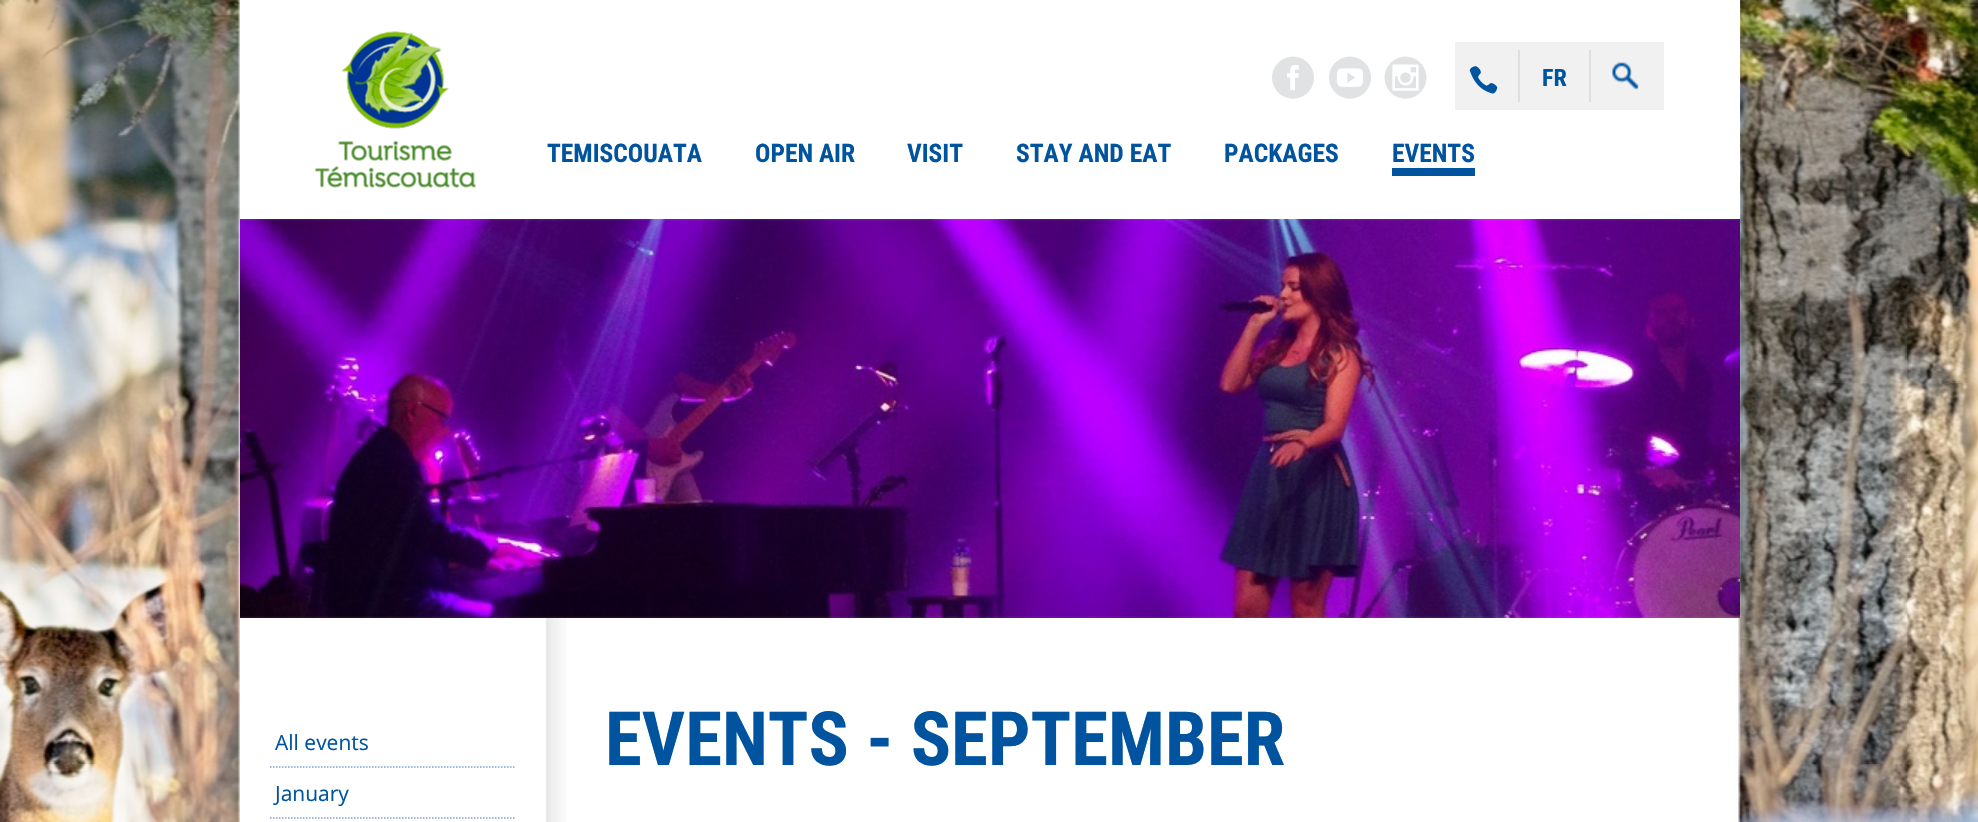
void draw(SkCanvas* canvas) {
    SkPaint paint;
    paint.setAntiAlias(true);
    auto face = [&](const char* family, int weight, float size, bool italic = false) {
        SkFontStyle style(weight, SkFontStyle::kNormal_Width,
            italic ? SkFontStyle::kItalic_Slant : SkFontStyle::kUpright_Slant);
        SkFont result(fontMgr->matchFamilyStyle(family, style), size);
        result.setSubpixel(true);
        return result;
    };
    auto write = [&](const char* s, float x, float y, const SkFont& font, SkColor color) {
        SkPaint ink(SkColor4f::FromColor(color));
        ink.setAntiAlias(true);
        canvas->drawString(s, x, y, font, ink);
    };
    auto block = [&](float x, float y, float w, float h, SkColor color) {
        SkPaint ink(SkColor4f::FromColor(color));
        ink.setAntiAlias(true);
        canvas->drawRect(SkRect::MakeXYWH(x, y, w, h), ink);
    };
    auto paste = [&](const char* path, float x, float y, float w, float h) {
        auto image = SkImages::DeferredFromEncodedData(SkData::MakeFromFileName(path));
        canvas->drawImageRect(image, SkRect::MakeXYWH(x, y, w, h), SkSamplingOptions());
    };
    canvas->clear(SK_ColorWHITE);
    paste("pic1.png", 0, 0, 1978, 822);
    block(240, 0, 1500, 219, SK_ColorWHITE);
    paste("pic2.png", 315, 31, 161, 157);
    paste("pic3.png", 1272, 56, 42, 43);
    paste("pic4.png", 1329, 56, 42, 43);
    paste("pic5.png", 1384, 56, 43, 43);
    block(1455, 42, 209, 68, SkColorSetRGB(241, 241, 241));
    paste("pic6.png", 1469, 66, 29, 28);
    block(1518, 50, 2, 52, SkColorSetRGB(223, 223, 223));
    auto kFont1 = face("Roboto Condensed", 700, 24);
    write("FR", 1542, 86, kFont1, SkColorSetRGB(0, 84, 159));
    block(1589, 50, 2, 52, SkColorSetRGB(223, 223, 223));
    paste("pic7.png", 1612, 62, 27, 28);
    auto kFont2 = face("Roboto Condensed", 700, 25.5f);
    write("TEMISCOUATA", 547, 162, kFont2, SkColorSetRGB(0, 84, 159));
    write("OPEN AIR", 755, 162, kFont2, SkColorSetRGB(0, 84, 159));
    write("VISIT", 907, 162, kFont2, SkColorSetRGB(0, 84, 159));
    write("STAY AND EAT", 1016, 162, kFont2, SkColorSetRGB(0, 84, 159));
    write("PACKAGES", 1224, 162, kFont2, SkColorSetRGB(0, 84, 159));
    block(1392, 168, 83, 8, SkColorSetRGB(0, 84, 159));
    write("EVENTS", 1392, 162, kFont2, SkColorSetRGB(0, 84, 159));
    paste("pic8.png", 240, 219, 1500, 399);
    paste("pic9.png", 240, 618, 327, 204);
    paint.setStyle(SkPaint::kStroke_Style);
    paint.setStrokeWidth(1.5f);
    paint.setColor(SkColorSetRGB(120, 164, 204));
    paint.setPathEffect(SkDashPathEffect::Make({{1.5f, 1.5f}}, 0));
    canvas->drawPath(SkPathBuilder().moveTo(270, 767).lineTo(516, 767).detach(), paint);
    paint.setPathEffect(nullptr);
    auto kFont3 = face("Open Sans", 400, 21);
    write("All events", 275, 750, kFont3, SkColorSetRGB(0, 84, 159));
    paint.setPathEffect(SkDashPathEffect::Make({{1.5f, 1.5f}}, 0));
    canvas->drawPath(SkPathBuilder().moveTo(270, 818).lineTo(516, 818).detach(), paint);
    paint.setPathEffect(nullptr);
    write("January", 275, 801, kFont3, SkColorSetRGB(0, 84, 159));
    auto kFont4 = face("Roboto Condensed", 700, 75);
    write("EVENTS - SEPTEMBER", 605, 765, kFont4, SkColorSetRGB(0, 84, 159));
}
